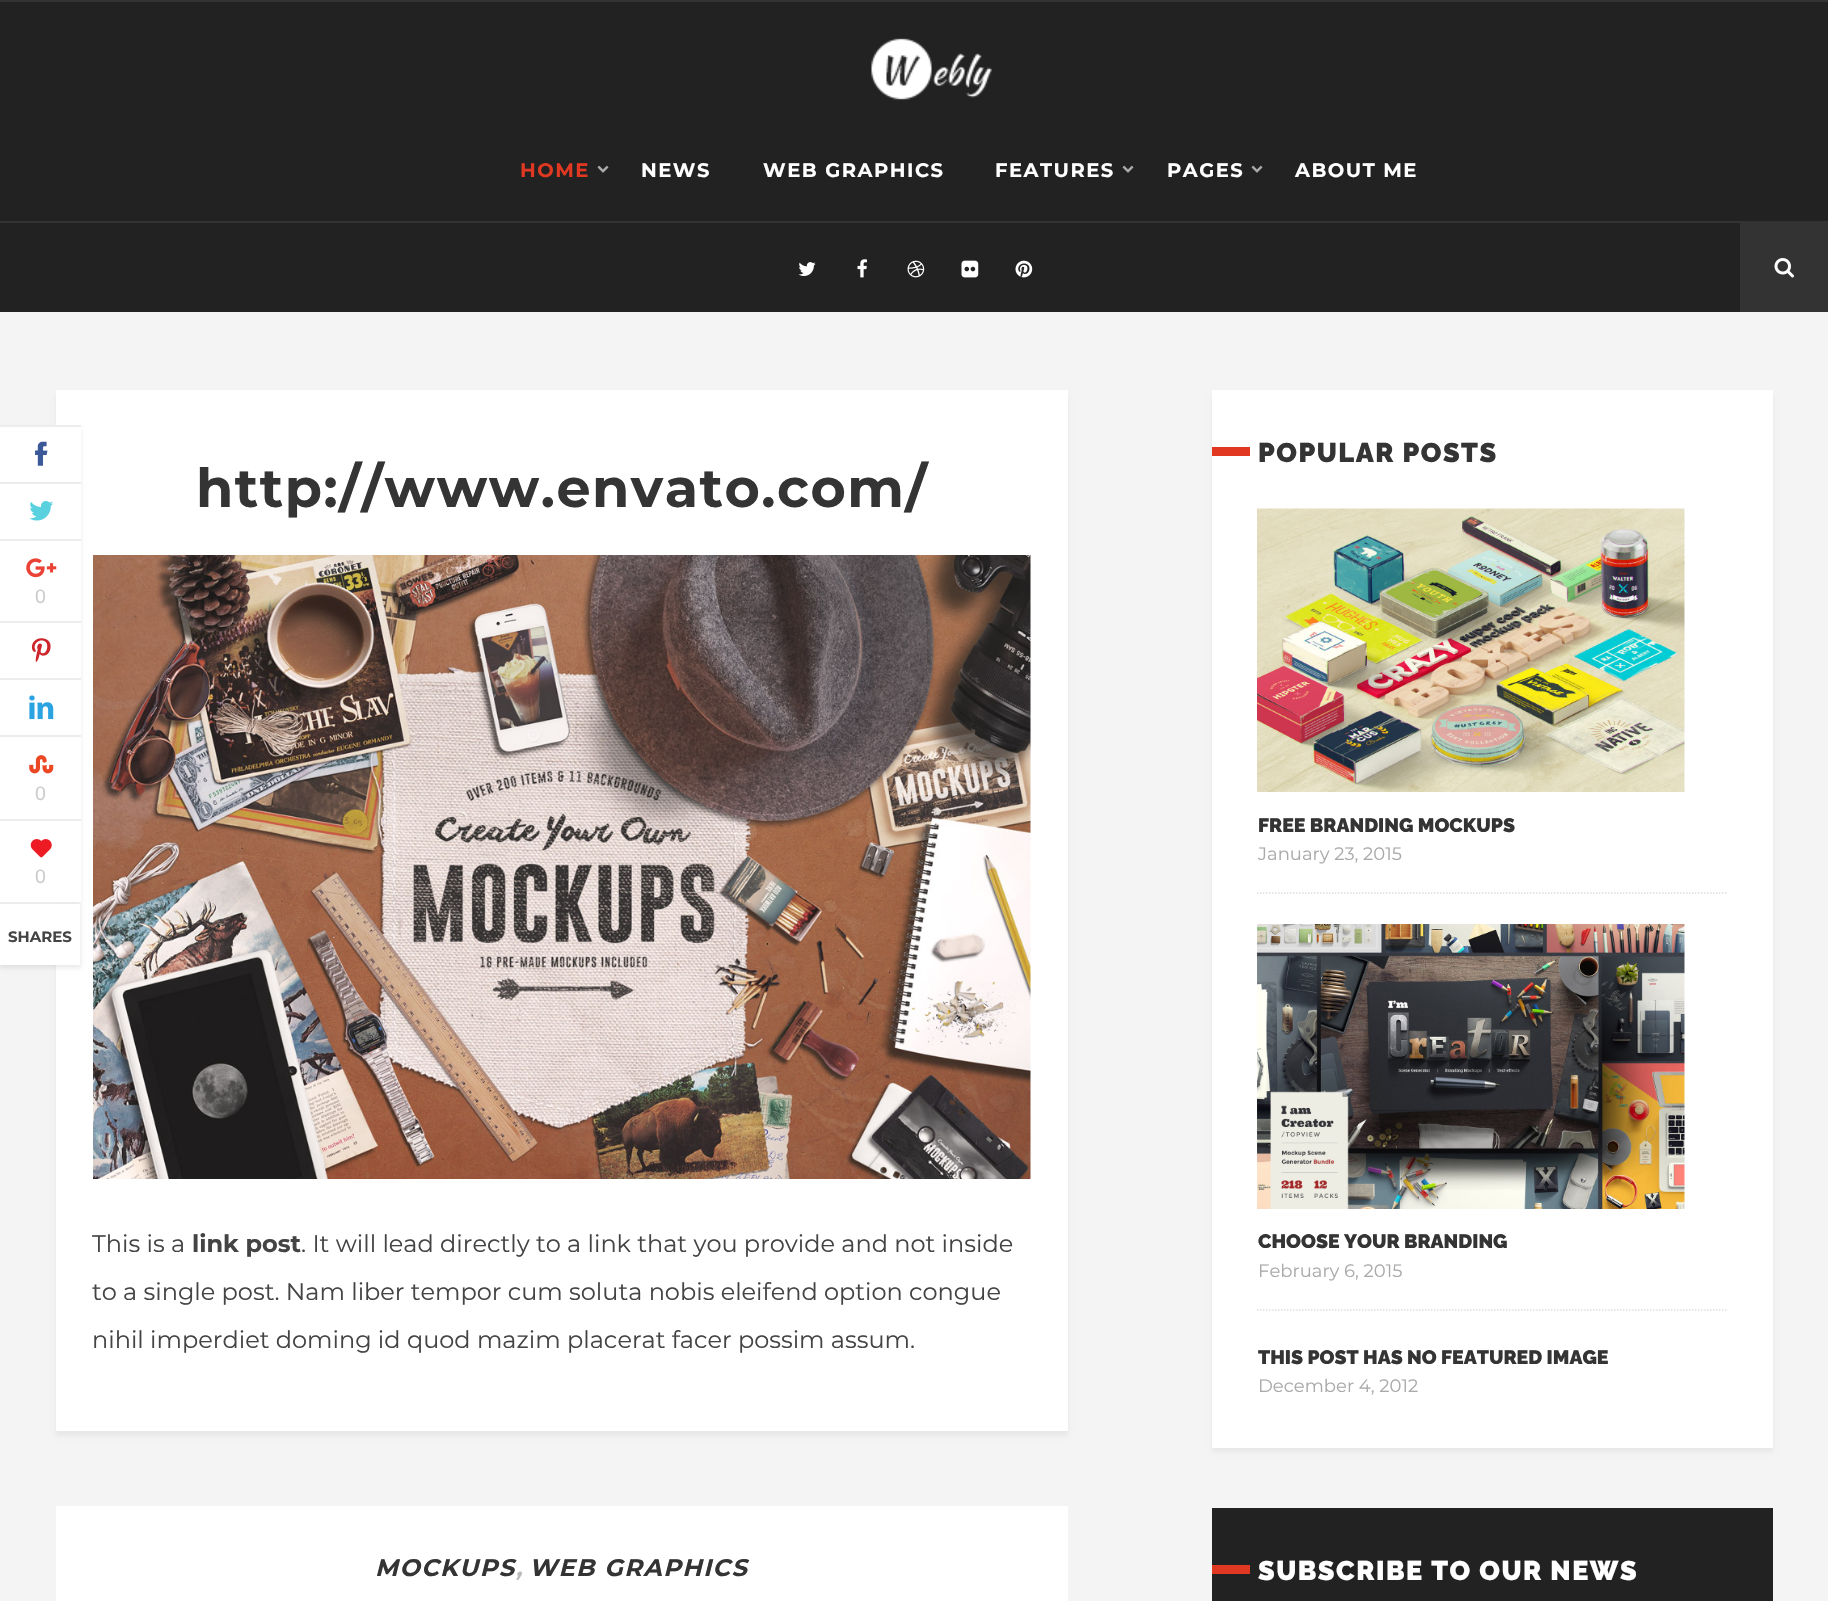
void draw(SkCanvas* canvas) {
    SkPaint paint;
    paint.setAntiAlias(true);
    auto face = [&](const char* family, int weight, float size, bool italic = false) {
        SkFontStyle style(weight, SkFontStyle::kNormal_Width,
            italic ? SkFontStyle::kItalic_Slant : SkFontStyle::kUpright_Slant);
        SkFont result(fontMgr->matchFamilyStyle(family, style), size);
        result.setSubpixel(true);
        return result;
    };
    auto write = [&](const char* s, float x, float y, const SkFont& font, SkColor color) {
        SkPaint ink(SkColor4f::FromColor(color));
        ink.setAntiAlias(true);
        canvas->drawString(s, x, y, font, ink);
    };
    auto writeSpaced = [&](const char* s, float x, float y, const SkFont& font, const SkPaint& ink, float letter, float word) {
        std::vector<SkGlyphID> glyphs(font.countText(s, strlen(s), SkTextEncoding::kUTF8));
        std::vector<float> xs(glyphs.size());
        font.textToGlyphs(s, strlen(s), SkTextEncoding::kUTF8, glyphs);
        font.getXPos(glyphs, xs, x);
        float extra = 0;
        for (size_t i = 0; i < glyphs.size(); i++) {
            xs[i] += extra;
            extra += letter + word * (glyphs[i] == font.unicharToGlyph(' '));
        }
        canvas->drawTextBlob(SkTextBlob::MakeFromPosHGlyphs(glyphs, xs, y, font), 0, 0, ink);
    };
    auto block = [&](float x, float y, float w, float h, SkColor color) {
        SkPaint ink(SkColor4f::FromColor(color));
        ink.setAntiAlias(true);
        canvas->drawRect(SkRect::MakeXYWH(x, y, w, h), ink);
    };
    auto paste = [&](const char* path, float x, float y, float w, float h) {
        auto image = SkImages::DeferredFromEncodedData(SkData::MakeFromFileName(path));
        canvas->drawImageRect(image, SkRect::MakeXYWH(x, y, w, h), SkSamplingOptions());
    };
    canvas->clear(SkColorSetRGB(244, 244, 244));
    block(0, 2, 1828, 310, SkColorSetRGB(34, 34, 34));
    block(0, 0, 1828, 2, SkColorSetRGB(51, 51, 51));
    paste("pic1.png", 871, 38, 121, 62);
    block(0, 221, 1828, 2, SkColorSetRGB(51, 51, 51));
    auto kFont1 = face("Montserrat", 700, 19.5f);
    paint.setColor(SkColorSetRGB(224, 56, 33));
    writeSpaced("HOME", 520, 177, kFont1, paint, 1.5f, 0);
    paste("pic2.png", 597, 165, 12, 8);
    paint.setColor(SK_ColorWHITE);
    writeSpaced("NEWS", 641, 177, kFont1, paint, 1.5f, 0);
    writeSpaced("WEB GRAPHICS", 763, 177, kFont1, paint, 1.5f, 0);
    writeSpaced("FEATURES", 995, 177, kFont1, paint, 1.5f, 0);
    paste("pic2.png", 1122, 165, 12, 8);
    writeSpaced("PAGES", 1167, 177, kFont1, paint, 1.5f, 0);
    paste("pic2.png", 1251, 165, 12, 8);
    writeSpaced("ABOUT ME", 1295, 177, kFont1, paint, 1.5f, 0);
    paste("pic3.png", 798, 262, 18, 14);
    paste("pic4.png", 857, 259, 10, 19);
    paste("pic5.png", 907, 260, 18, 18);
    paste("pic6.png", 961, 260, 18, 18);
    paste("pic7.png", 1015, 260, 18, 18);
    block(1740, 223, 88, 89, SkColorSetRGB(51, 51, 51));
    paste("pic8.png", 1774, 258, 20, 20);
    paint.setColor(SkColorSetARGB(13, 0, 0, 0));
    paint.setMaskFilter(SkMaskFilter::MakeBlur(kNormal_SkBlurStyle, 2));
    canvas->drawRect(SkRect::MakeXYWH(56, 395, 1012, 1041), paint);
    paint.setMaskFilter(nullptr);
    block(56, 390, 1012, 1041, SK_ColorWHITE);
    paint.setColor(SkColorSetARGB(20, 0, 0, 0));
    paint.setMaskFilter(SkMaskFilter::MakeBlur(kNormal_SkBlurStyle, 2));
    canvas->drawRect(SkRect::MakeXYWH(0, 429, 81, 539), paint);
    paint.setMaskFilter(nullptr);
    block(0, 427, 81, 55, SK_ColorWHITE);
    block(0, 425, 81, 2, SkColorSetRGB(237, 237, 237));
    paste("pic9.png", 35, 441, 13, 25);
    block(0, 484, 81, 55, SK_ColorWHITE);
    block(0, 482, 81, 2, SkColorSetRGB(237, 237, 237));
    paste("pic10.png", 29, 501, 25, 20);
    block(0, 541, 81, 80, SK_ColorWHITE);
    block(0, 539, 81, 2, SkColorSetRGB(237, 237, 237));
    paste("pic11.png", 26, 558, 31, 20);
    auto kFont2 = face("Liberation Sans", 400, 19.5f);
    write("0", 35, 603, kFont2, SkColorSetRGB(204, 204, 204));
    block(0, 623, 81, 55, SK_ColorWHITE);
    block(0, 621, 81, 2, SkColorSetRGB(237, 237, 237));
    paste("pic12.png", 31, 638, 20, 25);
    block(0, 680, 81, 55, SK_ColorWHITE);
    block(0, 678, 81, 2, SkColorSetRGB(237, 237, 237));
    paste("pic13.png", 29, 695, 25, 25);
    block(0, 737, 81, 82, SK_ColorWHITE);
    block(0, 735, 81, 2, SkColorSetRGB(237, 237, 237));
    paste("pic14.png", 29, 755, 25, 19);
    write("0", 35, 800, kFont2, SkColorSetRGB(204, 204, 204));
    block(0, 821, 81, 81, SK_ColorWHITE);
    block(0, 819, 81, 2, SkColorSetRGB(237, 237, 237));
    paste("pic15.png", 30, 839, 22, 19);
    write("0", 35, 883, kFont2, SkColorSetRGB(204, 204, 204));
    block(0, 904, 80, 61, SK_ColorWHITE);
    block(0, 902, 56, 2, SkColorSetRGB(237, 237, 237));
    auto kFont3 = face("Montserrat", 700, 15);
    write("SHARES", 8, 942, kFont3, SkColorSetRGB(68, 68, 68));
    auto kFont4 = face("Montserrat", 700, 54);
    paint.setColor(SkColorSetRGB(52, 52, 52));
    writeSpaced("http://www.envato.com/", 196, 507, kFont4, paint, 1.5f, 0);
    paste("pic16.png", 93, 555, 938, 624);
    auto kFont5 = face("Montserrat", 400, 24);
    write("This is a", 92, 1252, kFont5, SkColorSetRGB(68, 68, 68));
    auto kFont6 = face("Montserrat", 700, 24);
    write("link post", 192, 1252, kFont6, SkColorSetRGB(68, 68, 68));
    write(". It will lead directly to a link that you provide and not inside", 301, 1252, kFont5, SkColorSetRGB(68, 68, 68));
    write("to a single post. Nam liber tempor cum soluta nobis eleifend option congue", 92, 1300, kFont5, SkColorSetRGB(68, 68, 68));
    write("nihil imperdiet doming id quod mazim placerat facer possim assum.", 92, 1348, kFont5, SkColorSetRGB(68, 68, 68));
    block(56, 1506, 1012, 95, SK_ColorWHITE);
    auto kFont7 = face("Montserrat", 700, 24, true);
    writeSpaced("MOCKUPS", 375, 1576, kFont7, paint, 1.5f, 0);
    write(",", 516, 1576, kFont7, SkColorSetRGB(187, 187, 187));
    writeSpaced("WEB GRAPHICS", 529, 1576, kFont7, paint, 1.5f, 0);
    paint.setColor(SkColorSetARGB(13, 0, 0, 0));
    paint.setMaskFilter(SkMaskFilter::MakeBlur(kNormal_SkBlurStyle, 2));
    canvas->drawRect(SkRect::MakeXYWH(1212, 395, 561, 1057), paint);
    paint.setMaskFilter(nullptr);
    block(1212, 390, 561, 1058, SK_ColorWHITE);
    block(1212, 447, 38, 9, SkColorSetRGB(224, 56, 33));
    auto kFont8 = face("Raleway", 900, 27);
    paint.setColor(SkColorSetRGB(52, 52, 52));
    writeSpaced("POPULAR POSTS", 1258, 462, kFont8, paint, 1.5f, 0);
    paint.setStyle(SkPaint::kStroke_Style);
    paint.setStrokeWidth(1.5f);
    paint.setColor(SkColorSetRGB(221, 221, 221));
    paint.setPathEffect(SkDashPathEffect::Make({{1.5f, 1.5f}}, 0));
    canvas->drawPath(SkPathBuilder().moveTo(1257, 893).lineTo(1728, 893).detach(), paint);
    paint.setPathEffect(nullptr);
    paste("pic17.png", 1257, 508, 428, 284);
    auto kFont9 = face("Raleway", 900, 19.5f);
    write("FREE BRANDING MOCKUPS", 1258, 832, kFont9, SkColorSetRGB(52, 52, 52));
    auto kFont10 = face("Montserrat", 400, 18);
    write("January 23, 2015", 1258, 860, kFont10, SkColorSetRGB(170, 170, 170));
    paint.setPathEffect(SkDashPathEffect::Make({{1.5f, 1.5f}}, 0));
    canvas->drawPath(SkPathBuilder().moveTo(1257, 1310).lineTo(1728, 1310).detach(), paint);
    paint.setPathEffect(nullptr);
    paste("pic18.png", 1257, 924, 428, 285);
    write("CHOOSE YOUR BRANDING", 1258, 1248, kFont9, SkColorSetRGB(52, 52, 52));
    write("February 6, 2015", 1258, 1277, kFont10, SkColorSetRGB(170, 170, 170));
    write("THIS POST HAS NO FEATURED IMAGE", 1258, 1364, kFont9, SkColorSetRGB(52, 52, 52));
    write("December 4, 2012", 1258, 1392, kFont10, SkColorSetRGB(170, 170, 170));
    block(1212, 1508, 561, 93, SkColorSetRGB(34, 34, 34));
    block(1212, 1565, 38, 9, SkColorSetRGB(224, 56, 33));
    paint.setStyle(SkPaint::kFill_Style);
    paint.setColor(SK_ColorWHITE);
    writeSpaced("SUBSCRIBE TO OUR NEWS", 1258, 1580, kFont8, paint, 1.5f, 0);
}
